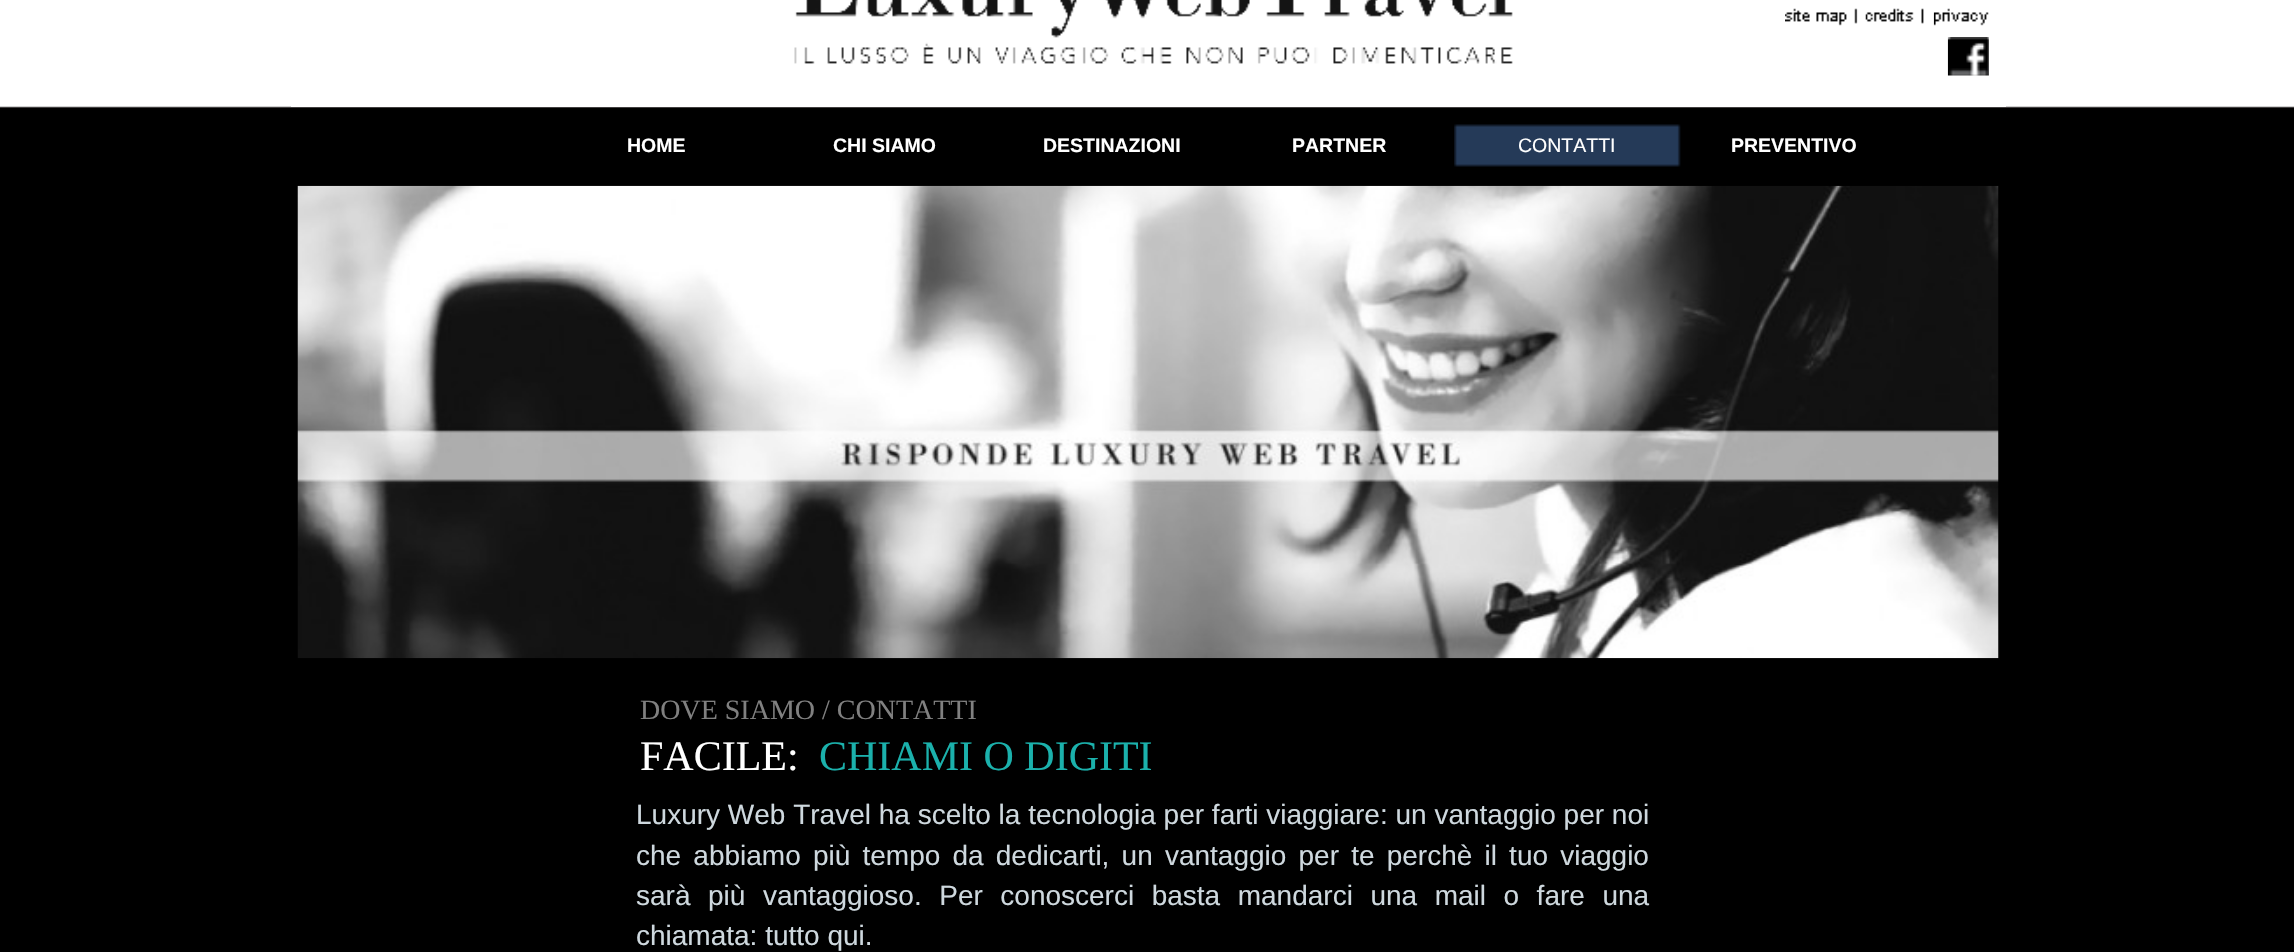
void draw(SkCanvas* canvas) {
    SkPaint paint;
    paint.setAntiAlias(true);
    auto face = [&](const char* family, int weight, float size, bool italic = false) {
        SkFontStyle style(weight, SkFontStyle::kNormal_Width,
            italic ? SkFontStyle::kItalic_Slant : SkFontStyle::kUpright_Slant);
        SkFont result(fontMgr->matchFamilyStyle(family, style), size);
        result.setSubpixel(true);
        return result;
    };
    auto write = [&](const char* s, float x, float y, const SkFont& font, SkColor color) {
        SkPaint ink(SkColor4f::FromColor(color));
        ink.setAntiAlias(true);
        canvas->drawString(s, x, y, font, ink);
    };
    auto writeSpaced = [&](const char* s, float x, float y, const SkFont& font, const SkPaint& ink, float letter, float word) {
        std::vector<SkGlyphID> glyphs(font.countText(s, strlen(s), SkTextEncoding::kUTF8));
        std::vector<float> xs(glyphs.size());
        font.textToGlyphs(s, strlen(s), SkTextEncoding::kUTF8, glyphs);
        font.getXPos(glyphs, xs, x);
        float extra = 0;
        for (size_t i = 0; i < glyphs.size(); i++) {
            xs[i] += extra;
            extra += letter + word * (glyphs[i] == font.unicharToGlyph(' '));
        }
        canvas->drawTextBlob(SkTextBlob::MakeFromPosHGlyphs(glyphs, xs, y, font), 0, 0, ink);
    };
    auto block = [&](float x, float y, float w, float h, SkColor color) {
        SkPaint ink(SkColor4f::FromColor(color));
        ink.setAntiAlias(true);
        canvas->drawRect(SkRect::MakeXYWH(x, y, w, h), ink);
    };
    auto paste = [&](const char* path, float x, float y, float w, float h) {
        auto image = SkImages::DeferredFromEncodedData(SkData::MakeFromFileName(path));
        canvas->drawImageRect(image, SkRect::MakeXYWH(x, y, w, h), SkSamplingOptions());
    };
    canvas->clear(SK_ColorBLACK);
    paste("pic1.png", 0, 0, 2294, 108);
    block(291, 106, 1715, 1, SK_ColorWHITE);
    paste("pic2.png", 794, 0, 719, 64);
    paste("pic3.png", 1785, 8, 73, 18);
    paste("pic4.png", 1865, 8, 59, 16);
    paste("pic5.png", 1933, 8, 56, 18);
    paste("pic6.png", 1947, 37, 42, 39);
    auto kFont1 = face("Liberation Sans", 700, 19.5f);
    write("HOME", 627, 152, kFont1, SK_ColorWHITE);
    write("CHI SIAMO", 833, 152, kFont1, SK_ColorWHITE);
    write("DESTINAZIONI", 1043, 152, kFont1, SK_ColorWHITE);
    write("PARTNER", 1292, 152, kFont1, SK_ColorWHITE);
    paste("pic7.png", 1454, 124, 227, 43);
    auto kFont2 = face("Liberation Sans", 400, 19.5f);
    write("CONTATTI", 1518, 152, kFont2, SK_ColorWHITE);
    write("PREVENTIVO", 1731, 152, kFont1, SK_ColorWHITE);
    paste("pic8.png", 297, 185, 1702, 474);
    auto kFont3 = face("Liberation Serif", 400, 28);
    write("DOVE SIAMO / CONTATTI", 640, 719, kFont3, SkColorSetRGB(128, 128, 128));
    auto kFont4 = face("Liberation Serif", 400, 42);
    write("FACILE:", 640, 770, kFont4, SK_ColorWHITE);
    write("CHIAMI O DIGITI", 819, 770, kFont4, SkColorSetRGB(27, 177, 172));
    auto kFont5 = face("Liberation Sans", 400, 28);
    write("Luxury Web Travel ha scelto la tecnologia per farti viaggiare: un vantaggio per noi", 636, 824, kFont5, SkColorSetRGB(206, 216, 222));
    paint.setColor(SkColorSetRGB(206, 216, 222));
    writeSpaced("che abbiamo più tempo da dedicarti, un vantaggio per te perchè il tuo viaggio", 636, 865, kFont5, paint, 0, 4.4f);
    writeSpaced("sarà più vantaggioso. Per conoscerci basta mandarci una mail o fare una", 636, 905, kFont5, paint, 0, 9.75f);
    write("chiamata: tutto qui.", 636, 945, kFont5, SkColorSetRGB(206, 216, 222));
}
